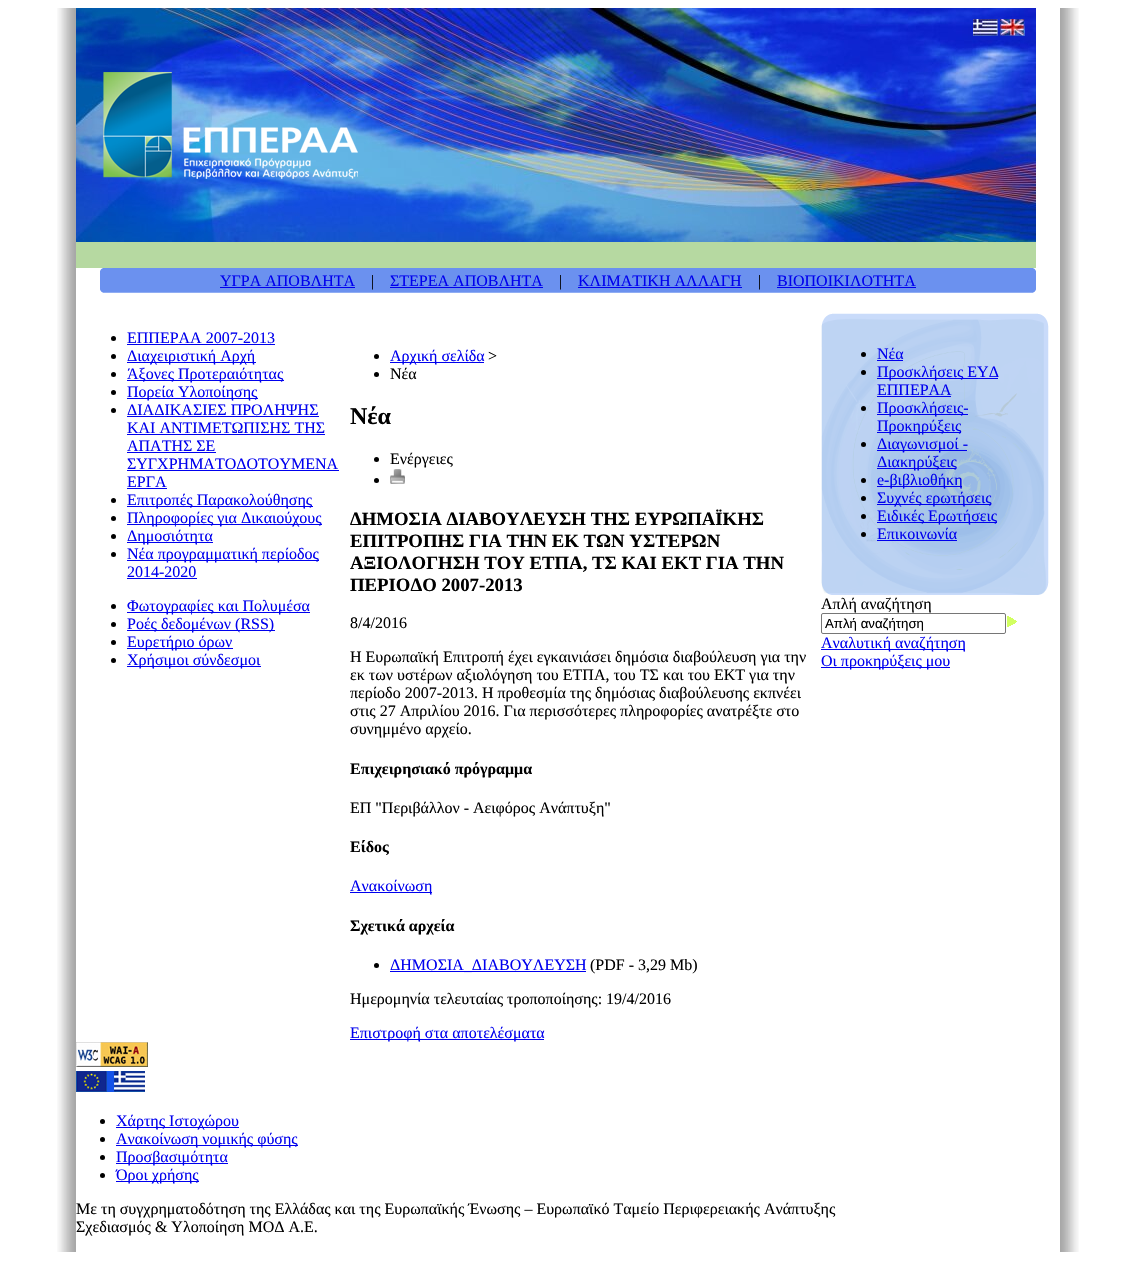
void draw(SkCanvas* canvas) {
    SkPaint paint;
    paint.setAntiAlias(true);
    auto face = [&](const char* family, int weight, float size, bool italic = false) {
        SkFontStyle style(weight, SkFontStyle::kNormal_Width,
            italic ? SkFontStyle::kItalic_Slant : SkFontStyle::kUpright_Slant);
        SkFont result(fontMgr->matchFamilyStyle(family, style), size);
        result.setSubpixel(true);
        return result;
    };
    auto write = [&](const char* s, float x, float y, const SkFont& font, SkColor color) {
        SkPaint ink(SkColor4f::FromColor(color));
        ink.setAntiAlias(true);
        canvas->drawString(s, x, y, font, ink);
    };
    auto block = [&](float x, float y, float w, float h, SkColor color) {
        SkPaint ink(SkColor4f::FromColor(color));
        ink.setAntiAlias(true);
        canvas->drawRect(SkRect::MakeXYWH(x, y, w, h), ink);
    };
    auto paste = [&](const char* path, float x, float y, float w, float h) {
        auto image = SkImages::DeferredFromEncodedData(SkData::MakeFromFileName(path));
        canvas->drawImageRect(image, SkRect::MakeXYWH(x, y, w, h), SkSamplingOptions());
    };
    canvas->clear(SK_ColorWHITE);
    paste("pic1.png", 57, 8, 19, 1244);
    paste("pic2.png", 76, 8, 960, 234);
    paste("pic3.png", 973, 19, 25, 17);
    paste("pic4.png", 1000, 19, 25, 17);
    paste("pic5.png", 103, 72, 255, 107);
    block(76, 242, 960, 26, SkColorSetRGB(182, 217, 161));
    paste("pic6.png", 100, 268, 936, 25);
    auto kFont1 = face("Liberation Serif", 400, 16);
    write("ΥΓΡΑ ΑΠΟΒΛΗΤΑ", 220, 286, kFont1, SkColorSetRGB(0, 0, 238));
    block(220, 287, 135, 1, SkColorSetRGB(0, 0, 238));
    write("|", 371, 286, kFont1, SK_ColorBLACK);
    write("ΣΤΕΡΕΑ ΑΠΟΒΛΗΤΑ", 390, 286, kFont1, SkColorSetRGB(0, 0, 238));
    block(390, 287, 153, 1, SkColorSetRGB(0, 0, 238));
    write("|", 559, 286, kFont1, SK_ColorBLACK);
    write("ΚΛΙΜΑΤΙΚΗ ΑΛΛΑΓΗ", 578, 286, kFont1, SkColorSetRGB(0, 0, 238));
    block(578, 287, 164, 1, SkColorSetRGB(0, 0, 238));
    write("|", 758, 286, kFont1, SK_ColorBLACK);
    write("ΒΙΟΠΟΙΚΙΛΟΤΗΤΑ", 777, 286, kFont1, SkColorSetRGB(0, 0, 238));
    block(777, 287, 139, 1, SkColorSetRGB(0, 0, 238));
    paint.setColor(SK_ColorBLACK);
    canvas->drawCircle(113.5f, 338.5f, 2.5f, paint);
    write("ΕΠΠΕΡΑΑ 2007-2013", 127, 343, kFont1, SkColorSetRGB(0, 0, 238));
    block(127, 344, 148, 1, SkColorSetRGB(0, 0, 238));
    canvas->drawCircle(113.5f, 356.5f, 2.5f, paint);
    block(127, 362, 129, 1, SkColorSetRGB(0, 0, 238));
    write("Διαχειριστική Αρχή", 127, 361, kFont1, SkColorSetRGB(0, 0, 238));
    canvas->drawCircle(113.5f, 374.5f, 2.5f, paint);
    block(127, 380, 157, 1, SkColorSetRGB(0, 0, 238));
    write("Άξονες Προτεραιότητας", 127, 379, kFont1, SkColorSetRGB(0, 0, 238));
    canvas->drawCircle(113.5f, 392.5f, 2.5f, paint);
    block(127, 398, 131, 1, SkColorSetRGB(0, 0, 238));
    write("Πορεία Υλοποίησης", 127, 397, kFont1, SkColorSetRGB(0, 0, 238));
    canvas->drawCircle(113.5f, 410.5f, 2.5f, paint);
    write("ΔΙΑΔΙΚΑΣΙΕΣ ΠΡΟΛΗΨΗΣ", 127, 415, kFont1, SkColorSetRGB(0, 0, 238));
    block(127, 416, 192, 1, SkColorSetRGB(0, 0, 238));
    write("ΚΑΙ ΑΝΤΙΜΕΤΩΠΙΣΗΣ ΤΗΣ", 127, 433, kFont1, SkColorSetRGB(0, 0, 238));
    block(127, 434, 198, 1, SkColorSetRGB(0, 0, 238));
    write("ΑΠΑΤΗΣ ΣΕ", 127, 451, kFont1, SkColorSetRGB(0, 0, 238));
    block(127, 452, 89, 1, SkColorSetRGB(0, 0, 238));
    write("ΣΥΓΧΡΗΜΑΤΟΔΟΤΟΥΜΕΝΑ", 127, 469, kFont1, SkColorSetRGB(0, 0, 238));
    block(127, 470, 212, 1, SkColorSetRGB(0, 0, 238));
    write("ΕΡΓΑ", 127, 487, kFont1, SkColorSetRGB(0, 0, 238));
    block(127, 488, 40, 1, SkColorSetRGB(0, 0, 238));
    canvas->drawCircle(113.5f, 500.5f, 2.5f, paint);
    block(127, 506, 186, 1, SkColorSetRGB(0, 0, 238));
    write("Επιτροπές Παρακολούθησης", 127, 505, kFont1, SkColorSetRGB(0, 0, 238));
    canvas->drawCircle(113.5f, 518.5f, 2.5f, paint);
    block(127, 524, 195, 1, SkColorSetRGB(0, 0, 238));
    write("Πληροφορίες για Δικαιούχους", 127, 523, kFont1, SkColorSetRGB(0, 0, 238));
    canvas->drawCircle(113.5f, 536.5f, 2.5f, paint);
    block(127, 542, 86, 1, SkColorSetRGB(0, 0, 238));
    write("Δημοσιότητα", 127, 541, kFont1, SkColorSetRGB(0, 0, 238));
    canvas->drawCircle(113.5f, 554.5f, 2.5f, paint);
    block(127, 560, 192, 1, SkColorSetRGB(0, 0, 238));
    write("Νέα προγραμματική περίοδος", 127, 559, kFont1, SkColorSetRGB(0, 0, 238));
    write("2014-2020", 127, 577, kFont1, SkColorSetRGB(0, 0, 238));
    block(127, 578, 70, 1, SkColorSetRGB(0, 0, 238));
    canvas->drawCircle(113.5f, 606.5f, 2.5f, paint);
    block(127, 612, 183, 1, SkColorSetRGB(0, 0, 238));
    write("Φωτογραφίες και Πολυμέσα", 127, 611, kFont1, SkColorSetRGB(0, 0, 238));
    canvas->drawCircle(113.5f, 624.5f, 2.5f, paint);
    block(127, 630, 148, 1, SkColorSetRGB(0, 0, 238));
    write("Ροές δεδομένων (RSS)", 127, 629, kFont1, SkColorSetRGB(0, 0, 238));
    canvas->drawCircle(113.5f, 642.5f, 2.5f, paint);
    block(127, 648, 106, 1, SkColorSetRGB(0, 0, 238));
    write("Ευρετήριο όρων", 127, 647, kFont1, SkColorSetRGB(0, 0, 238));
    canvas->drawCircle(113.5f, 660.5f, 2.5f, paint);
    block(127, 666, 134, 1, SkColorSetRGB(0, 0, 238));
    write("Χρήσιμοι σύνδεσμοι", 127, 665, kFont1, SkColorSetRGB(0, 0, 238));
    canvas->drawCircle(376.5f, 356.5f, 2.5f, paint);
    block(390, 362, 94, 1, SkColorSetRGB(0, 0, 238));
    write("Αρχική σελίδα", 390, 361, kFont1, SkColorSetRGB(0, 0, 238));
    write(">", 488, 361, kFont1, SK_ColorBLACK);
    canvas->drawCircle(376.5f, 374.5f, 2.5f, paint);
    write("Νέα", 390, 379, kFont1, SK_ColorBLACK);
    auto kFont2 = face("Liberation Serif", 700, 24);
    write("Νέα", 350, 424, kFont2, SK_ColorBLACK);
    canvas->drawCircle(376.5f, 459.5f, 2.5f, paint);
    write("Ενέργειες", 390, 464, kFont1, SK_ColorBLACK);
    canvas->drawCircle(376.5f, 480.5f, 2.5f, paint);
    paste("pic7.png", 390, 469, 15, 15);
    auto kFont3 = face("Liberation Serif", 700, 18.75f);
    write("ΔΗΜΟΣΙΑ ΔΙΑΒΟΥΛΕΥΣΗ ΤΗΣ ΕΥΡΩΠΑΪΚΗΣ", 350, 525, kFont3, SK_ColorBLACK);
    write("ΕΠΙΤΡΟΠΗΣ ΓΙΑ ΤΗΝ ΕΚ ΤΩΝ ΥΣΤΕΡΩΝ", 350, 547, kFont3, SK_ColorBLACK);
    write("ΑΞΙΟΛΟΓΗΣΗ ΤΟΥ ΕΤΠΑ, ΤΣ ΚΑΙ ΕΚΤ ΓΙΑ ΤΗΝ", 350, 569, kFont3, SK_ColorBLACK);
    write("ΠΕΡΙΟΔΟ 2007-2013", 350, 591, kFont3, SK_ColorBLACK);
    write("8/4/2016", 350, 628, kFont1, SK_ColorBLACK);
    write("Η Ευρωπαϊκή Επιτροπή έχει εγκαινιάσει δημόσια διαβούλευση για την", 350, 662, kFont1, SK_ColorBLACK);
    write("εκ των υστέρων αξιολόγηση του ΕΤΠΑ, του ΤΣ και του ΕΚΤ για την", 350, 680, kFont1, SK_ColorBLACK);
    write("περίοδο 2007-2013. Η προθεσμία της δημόσιας διαβούλευσης εκπνέει", 350, 698, kFont1, SK_ColorBLACK);
    write("στις 27 Απριλίου 2016. Για περισσότερες πληροφορίες ανατρέξτε στο", 350, 716, kFont1, SK_ColorBLACK);
    write("συνημμένο αρχείο.", 350, 734, kFont1, SK_ColorBLACK);
    auto kFont4 = face("Liberation Serif", 700, 16);
    write("Επιχειρησιακό πρόγραμμα", 350, 774, kFont4, SK_ColorBLACK);
    write("ΕΠ \"Περιβάλλον - Αειφόρος Ανάπτυξη\"", 350, 813, kFont1, SK_ColorBLACK);
    write("Είδος", 350, 852, kFont4, SK_ColorBLACK);
    block(350, 892, 82, 1, SkColorSetRGB(0, 0, 238));
    write("Ανακοίνωση", 350, 891, kFont1, SkColorSetRGB(0, 0, 238));
    write("Σχετικά αρχεία", 350, 931, kFont4, SK_ColorBLACK);
    canvas->drawCircle(376.5f, 965.5f, 2.5f, paint);
    block(390, 971, 196, 1, SkColorSetRGB(0, 0, 238));
    write("ΔΗΜΟΣΙΑ_ΔΙΑΒΟΥΛΕΥΣΗ", 390, 970, kFont1, SkColorSetRGB(0, 0, 238));
    write("(PDF - 3,29 Mb)", 590, 970, kFont1, SK_ColorBLACK);
    write("Ημερομηνία τελευταίας τροποποίησης: 19/4/2016", 350, 1004, kFont1, SK_ColorBLACK);
    block(350, 1039, 194, 1, SkColorSetRGB(0, 0, 238));
    write("Επιστροφή στα αποτελέσματα", 350, 1038, kFont1, SkColorSetRGB(0, 0, 238));
    paste("pic8.png", 821, 313, 228, 282);
    canvas->drawCircle(863.5f, 354.5f, 2.5f, paint);
    write("Νέα", 877, 359, kFont1, SkColorSetRGB(0, 0, 238));
    block(877, 360, 26, 1, SkColorSetRGB(0, 0, 238));
    canvas->drawCircle(863.5f, 372.5f, 2.5f, paint);
    block(877, 378, 121, 1, SkColorSetRGB(0, 0, 238));
    write("Προσκλήσεις ΕΥΔ", 877, 377, kFont1, SkColorSetRGB(0, 0, 238));
    write("ΕΠΠΕΡΑΑ", 877, 395, kFont1, SkColorSetRGB(0, 0, 238));
    block(877, 396, 74, 1, SkColorSetRGB(0, 0, 238));
    canvas->drawCircle(863.5f, 408.5f, 2.5f, paint);
    block(877, 414, 91, 1, SkColorSetRGB(0, 0, 238));
    write("Προσκλήσεις-", 877, 413, kFont1, SkColorSetRGB(0, 0, 238));
    block(877, 432, 84, 1, SkColorSetRGB(0, 0, 238));
    write("Προκηρύξεις", 877, 431, kFont1, SkColorSetRGB(0, 0, 238));
    canvas->drawCircle(863.5f, 444.5f, 2.5f, paint);
    block(877, 450, 90, 1, SkColorSetRGB(0, 0, 238));
    write("Διαγωνισμοί -", 877, 449, kFont1, SkColorSetRGB(0, 0, 238));
    block(877, 468, 79, 1, SkColorSetRGB(0, 0, 238));
    write("Διακηρύξεις", 877, 467, kFont1, SkColorSetRGB(0, 0, 238));
    canvas->drawCircle(863.5f, 480.5f, 2.5f, paint);
    block(877, 486, 85, 1, SkColorSetRGB(0, 0, 238));
    write("e-βιβλιοθήκη", 877, 485, kFont1, SkColorSetRGB(0, 0, 238));
    canvas->drawCircle(863.5f, 498.5f, 2.5f, paint);
    block(877, 504, 114, 1, SkColorSetRGB(0, 0, 238));
    write("Συχνές ερωτήσεις", 877, 503, kFont1, SkColorSetRGB(0, 0, 238));
    canvas->drawCircle(863.5f, 516.5f, 2.5f, paint);
    block(877, 522, 120, 1, SkColorSetRGB(0, 0, 238));
    write("Ειδικές Ερωτήσεις", 877, 521, kFont1, SkColorSetRGB(0, 0, 238));
    canvas->drawCircle(863.5f, 534.5f, 2.5f, paint);
    write("Επικοινωνία", 877, 539, kFont1, SkColorSetRGB(0, 0, 238));
    block(877, 540, 80, 1, SkColorSetRGB(0, 0, 238));
    write("Απλή αναζήτηση", 821, 609, kFont1, SK_ColorBLACK);
    paint.setStyle(SkPaint::kStroke_Style);
    paint.setStrokeWidth(1);
    paint.setColor(SkColorSetRGB(118, 118, 118));
    canvas->drawRoundRect(SkRect::MakeXYWH(821.5f, 613.5f, 184, 20), 1.5f, 1.5f, paint);
    auto kFont5 = face("Liberation Sans", 400, 13.25f);
    write("Απλή αναζήτηση", 825, 628, kFont5, SK_ColorBLACK);
    paste("pic9.png", 1007, 616, 10, 11);
    block(821, 649, 144, 1, SkColorSetRGB(0, 0, 238));
    write("Αναλυτική αναζήτηση", 821, 648, kFont1, SkColorSetRGB(0, 0, 238));
    block(821, 667, 129, 1, SkColorSetRGB(0, 0, 238));
    write("Οι προκηρύξεις μου", 821, 666, kFont1, SkColorSetRGB(0, 0, 238));
    paste("pic10.png", 76, 1042, 72, 25);
    paste("pic11.png", 76, 1071, 69, 21);
    paint.setStyle(SkPaint::kFill_Style);
    paint.setColor(SK_ColorBLACK);
    canvas->drawCircle(102.5f, 1121.5f, 2.5f, paint);
    block(116, 1127, 123, 1, SkColorSetRGB(0, 0, 238));
    write("Χάρτης Ιστοχώρου", 116, 1126, kFont1, SkColorSetRGB(0, 0, 238));
    canvas->drawCircle(102.5f, 1139.5f, 2.5f, paint);
    block(116, 1145, 182, 1, SkColorSetRGB(0, 0, 238));
    write("Ανακοίνωση νομικής φύσης", 116, 1144, kFont1, SkColorSetRGB(0, 0, 238));
    canvas->drawCircle(102.5f, 1157.5f, 2.5f, paint);
    block(116, 1163, 112, 1, SkColorSetRGB(0, 0, 238));
    write("Προσβασιμότητα", 116, 1162, kFont1, SkColorSetRGB(0, 0, 238));
    canvas->drawCircle(102.5f, 1175.5f, 2.5f, paint);
    block(116, 1181, 83, 1, SkColorSetRGB(0, 0, 238));
    write("Όροι χρήσης", 116, 1180, kFont1, SkColorSetRGB(0, 0, 238));
    write("Με τη συγχρηματοδότηση της Ελλάδας και της Ευρωπαϊκής Ένωσης – Ευρωπαϊκό Ταμείο Περιφερειακής Ανάπτυξης", 76, 1214, kFont1, SK_ColorBLACK);
    write("Σχεδιασμός & Yλοποίηση ΜΟΔ Α.Ε.", 76, 1232, kFont1, SK_ColorBLACK);
    paste("pic12.png", 1060, 8, 19, 1244);
}
